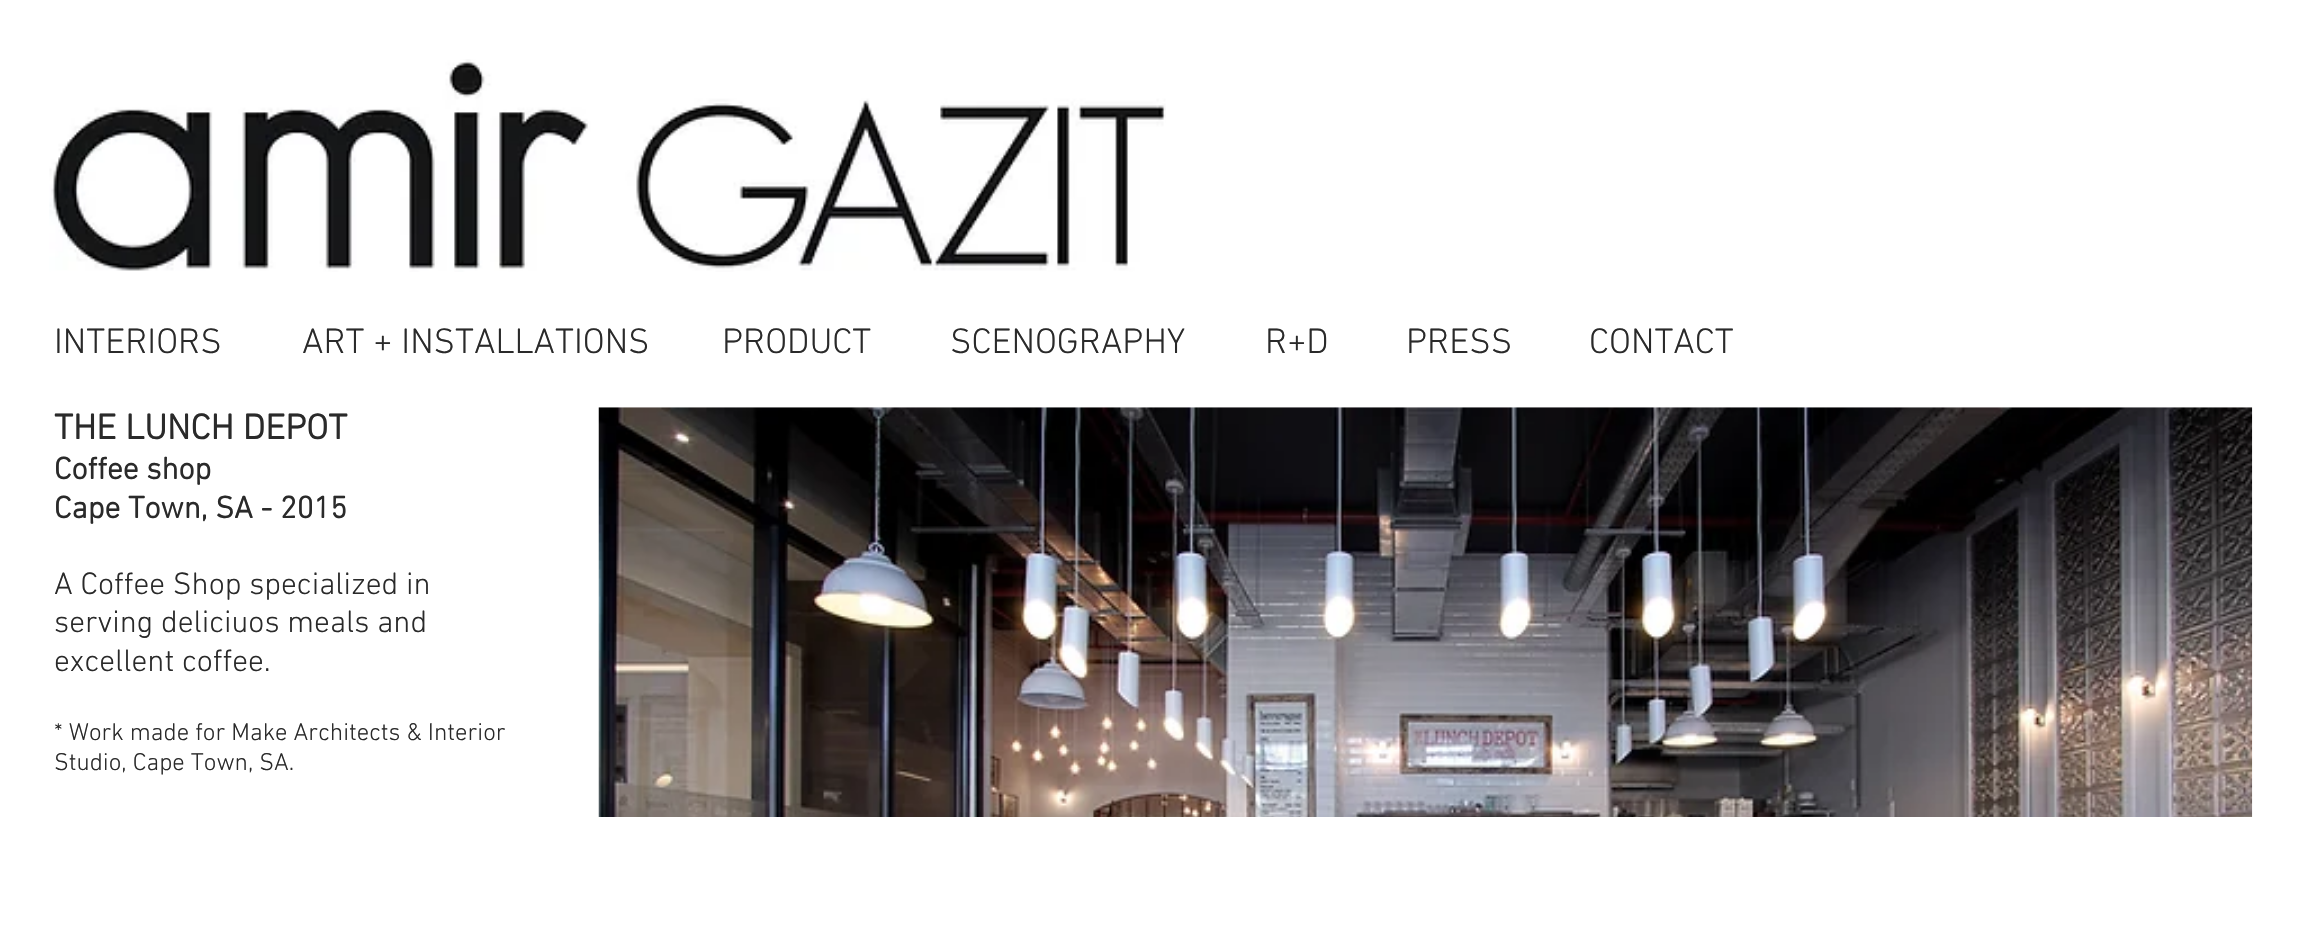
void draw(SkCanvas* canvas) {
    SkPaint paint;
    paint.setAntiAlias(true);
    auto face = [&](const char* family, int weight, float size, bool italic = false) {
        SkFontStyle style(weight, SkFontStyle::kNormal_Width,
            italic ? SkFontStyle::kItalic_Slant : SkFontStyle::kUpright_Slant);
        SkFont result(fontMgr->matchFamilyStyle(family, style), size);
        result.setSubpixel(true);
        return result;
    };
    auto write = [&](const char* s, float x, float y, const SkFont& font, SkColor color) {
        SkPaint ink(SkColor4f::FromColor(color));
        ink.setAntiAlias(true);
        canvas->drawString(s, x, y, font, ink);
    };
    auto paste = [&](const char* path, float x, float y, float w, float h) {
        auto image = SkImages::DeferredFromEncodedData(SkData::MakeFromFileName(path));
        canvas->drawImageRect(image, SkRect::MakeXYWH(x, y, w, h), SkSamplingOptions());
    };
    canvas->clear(SK_ColorWHITE);
    paste("pic1.png", 49, 59, 1117, 213);
    auto kFont1 = face("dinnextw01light", 300, 36);
    write("INTERIORS", 54, 353, kFont1, SkColorSetRGB(42, 42, 42));
    write("ART + INSTALLATIONS", 302, 353, kFont1, SkColorSetRGB(42, 42, 42));
    write("PRODUCT", 722, 353, kFont1, SkColorSetRGB(42, 42, 42));
    write("SCENOGRAPHY", 950, 353, kFont1, SkColorSetRGB(42, 42, 42));
    write("R+D", 1265, 353, kFont1, SkColorSetRGB(42, 42, 42));
    write("PRESS", 1406, 353, kFont1, SkColorSetRGB(42, 42, 42));
    write("CONTACT", 1589, 353, kFont1, SkColorSetRGB(42, 42, 42));
    auto kFont2 = face("dinnextw01light", 700, 36);
    write("THE LUNCH DEPOT", 54, 439, kFont2, SkColorSetRGB(42, 42, 42));
    auto kFont3 = face("dinnextw01light", 700, 31.5f);
    write("Coffee shop", 54, 479, kFont3, SkColorSetRGB(42, 42, 42));
    write("Cape Town, SA - 2015", 54, 518, kFont3, SkColorSetRGB(42, 42, 42));
    auto kFont4 = face("dinnextw01light", 300, 31.5f);
    write("A Coffee Shop specialized in", 54, 594, kFont4, SkColorSetRGB(42, 42, 42));
    write("serving deliciuos meals and", 54, 632, kFont4, SkColorSetRGB(42, 42, 42));
    write("excellent coffee.", 54, 671, kFont4, SkColorSetRGB(42, 42, 42));
    auto kFont5 = face("dinnextw01light", 300, 24.75f);
    write("* Work made for Make Architects & Interior", 54, 740, kFont5, SkColorSetRGB(42, 42, 42));
    write("Studio, Cape Town, SA.", 54, 770, kFont5, SkColorSetRGB(42, 42, 42));
    paste("pic2.png", 598, 407, 1655, 410);
}
